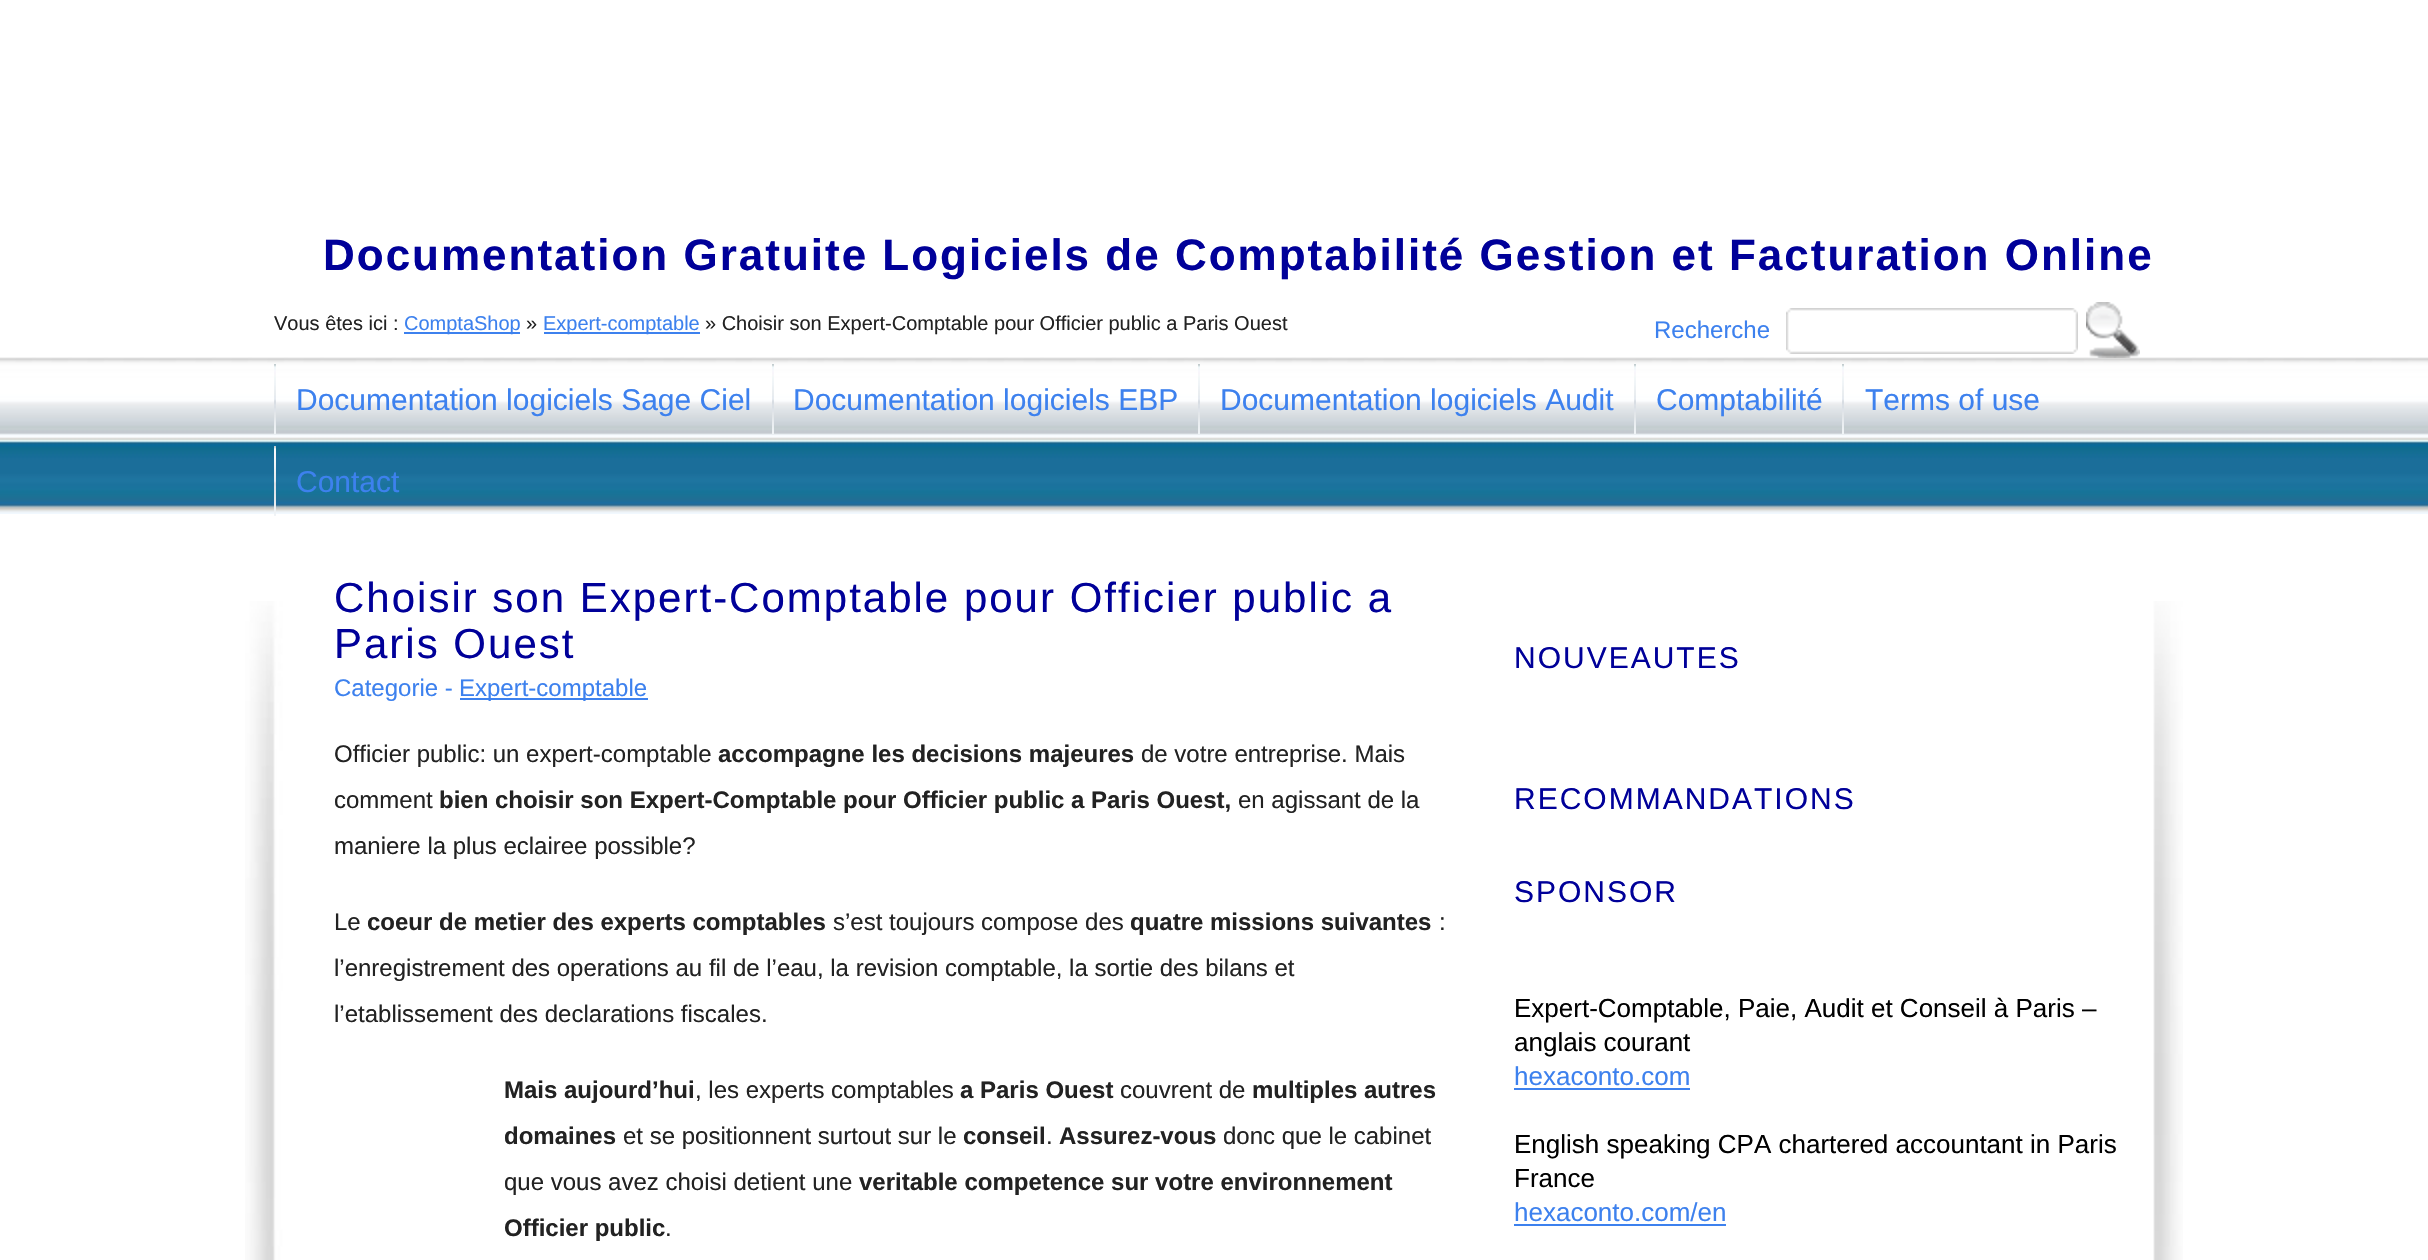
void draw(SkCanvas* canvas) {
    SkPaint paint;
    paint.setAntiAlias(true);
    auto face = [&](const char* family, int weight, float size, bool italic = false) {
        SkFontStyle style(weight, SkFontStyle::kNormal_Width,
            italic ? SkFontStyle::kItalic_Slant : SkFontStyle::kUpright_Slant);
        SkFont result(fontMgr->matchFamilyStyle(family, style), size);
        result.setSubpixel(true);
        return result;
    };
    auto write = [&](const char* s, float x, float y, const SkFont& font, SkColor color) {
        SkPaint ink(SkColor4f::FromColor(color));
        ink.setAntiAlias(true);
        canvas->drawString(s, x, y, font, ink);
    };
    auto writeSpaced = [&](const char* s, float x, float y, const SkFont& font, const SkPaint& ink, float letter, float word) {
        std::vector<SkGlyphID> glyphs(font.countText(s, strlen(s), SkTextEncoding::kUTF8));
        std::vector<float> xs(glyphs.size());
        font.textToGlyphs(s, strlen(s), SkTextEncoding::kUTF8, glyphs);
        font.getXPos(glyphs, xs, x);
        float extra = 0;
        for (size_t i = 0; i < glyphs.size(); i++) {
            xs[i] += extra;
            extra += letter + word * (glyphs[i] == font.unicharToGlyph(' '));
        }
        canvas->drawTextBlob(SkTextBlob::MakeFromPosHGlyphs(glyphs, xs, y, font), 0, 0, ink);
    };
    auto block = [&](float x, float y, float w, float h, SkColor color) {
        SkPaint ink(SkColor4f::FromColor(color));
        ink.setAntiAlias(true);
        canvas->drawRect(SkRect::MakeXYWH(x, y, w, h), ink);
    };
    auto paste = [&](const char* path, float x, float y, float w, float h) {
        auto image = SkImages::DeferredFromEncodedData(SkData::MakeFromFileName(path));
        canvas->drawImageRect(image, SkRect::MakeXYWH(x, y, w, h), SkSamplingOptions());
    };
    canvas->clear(SK_ColorWHITE);
    paste("pic1.png", 0, 357, 2428, 157);
    auto kFont1 = face("Liberation Sans", 700, 44);
    paint.setColor(SkColorSetRGB(0, 0, 153));
    writeSpaced("Documentation Gratuite Logiciels de Comptabilité Gestion et Facturation Online", 323, 270, kFont1, paint, 2, 0);
    auto kFont2 = face("Liberation Sans", 400, 20);
    write("Vous êtes ici :", 274, 330, kFont2, SkColorSetRGB(34, 34, 34));
    block(404, 332, 116, 2, SkColorSetRGB(61, 129, 238));
    write("ComptaShop", 404, 330, kFont2, SkColorSetRGB(61, 129, 238));
    write("»", 526, 330, kFont2, SkColorSetRGB(34, 34, 34));
    block(544, 332, 156, 2, SkColorSetRGB(61, 129, 238));
    write("Expert-comptable", 543, 330, kFont2, SkColorSetRGB(61, 129, 238));
    write("» Choisir son Expert-Comptable pour Officier public a Paris Ouest", 705, 330, kFont2, SkColorSetRGB(34, 34, 34));
    auto kFont3 = face("Liberation Sans", 400, 24);
    write("Recherche", 1654, 338, kFont3, SkColorSetRGB(61, 129, 238));
    paste("pic2.png", 1786, 308, 292, 46);
    paste("pic3.png", 2086, 302, 54, 56);
    paste("pic4.png", 274, 364, 2, 70);
    auto kFont4 = face("Liberation Sans", 400, 30);
    write("Documentation logiciels Sage Ciel", 296, 410, kFont4, SkColorSetRGB(61, 129, 238));
    paste("pic4.png", 772, 364, 2, 70);
    write("Documentation logiciels EBP", 793, 410, kFont4, SkColorSetRGB(61, 129, 238));
    paste("pic4.png", 1198, 364, 2, 70);
    write("Documentation logiciels Audit", 1220, 410, kFont4, SkColorSetRGB(61, 129, 238));
    paste("pic4.png", 1634, 364, 2, 70);
    write("Comptabilité", 1656, 410, kFont4, SkColorSetRGB(61, 129, 238));
    paste("pic4.png", 1842, 364, 2, 70);
    write("Terms of use", 1865, 410, kFont4, SkColorSetRGB(61, 129, 238));
    paste("pic4.png", 274, 446, 2, 70);
    write("Contact", 296, 492, kFont4, SkColorSetRGB(61, 129, 238));
    paste("pic5.png", 245, 601, 1938, 659);
    auto kFont5 = face("Liberation Sans", 400, 42);
    writeSpaced("Choisir son Expert-Comptable pour Officier public a", 334, 612, kFont5, paint, 2, 0);
    writeSpaced("Paris Ouest", 334, 658, kFont5, paint, 2, 0);
    write("Categorie -", 334, 696, kFont3, SkColorSetRGB(61, 129, 238));
    block(460, 698, 188, 2, SkColorSetRGB(61, 129, 238));
    write("Expert-comptable", 459, 696, kFont3, SkColorSetRGB(61, 129, 238));
    write("Officier public: un expert-comptable", 334, 762, kFont3, SkColorSetRGB(34, 34, 34));
    auto kFont6 = face("Liberation Sans", 700, 24);
    write("accompagne les decisions majeures", 718, 762, kFont6, SkColorSetRGB(34, 34, 34));
    write("de votre entreprise. Mais", 1141, 762, kFont3, SkColorSetRGB(34, 34, 34));
    write("comment", 334, 808, kFont3, SkColorSetRGB(34, 34, 34));
    write("bien choisir son Expert-Comptable pour Officier public a Paris Ouest,", 439, 808, kFont6, SkColorSetRGB(34, 34, 34));
    write("en agissant de la", 1238, 808, kFont3, SkColorSetRGB(34, 34, 34));
    write("maniere la plus eclairee possible?", 334, 854, kFont3, SkColorSetRGB(34, 34, 34));
    write("Le", 334, 930, kFont3, SkColorSetRGB(34, 34, 34));
    write("coeur de metier des experts comptables", 367, 930, kFont6, SkColorSetRGB(34, 34, 34));
    write("s’est toujours compose des", 833, 930, kFont3, SkColorSetRGB(34, 34, 34));
    write("quatre missions suivantes", 1130, 930, kFont6, SkColorSetRGB(34, 34, 34));
    write(":", 1439, 930, kFont3, SkColorSetRGB(34, 34, 34));
    write("l’enregistrement des operations au fil de l’eau, la revision comptable, la sortie des bilans et", 334, 976, kFont3, SkColorSetRGB(34, 34, 34));
    write("l’etablissement des declarations fiscales.", 334, 1022, kFont3, SkColorSetRGB(34, 34, 34));
    write("Mais aujourd’hui", 504, 1098, kFont6, SkColorSetRGB(34, 34, 34));
    write(", les experts comptables", 695, 1098, kFont3, SkColorSetRGB(34, 34, 34));
    write("a Paris Ouest", 960, 1098, kFont6, SkColorSetRGB(34, 34, 34));
    write("couvrent de", 1120, 1098, kFont3, SkColorSetRGB(34, 34, 34));
    write("multiples autres", 1252, 1098, kFont6, SkColorSetRGB(34, 34, 34));
    write("domaines", 504, 1144, kFont6, SkColorSetRGB(34, 34, 34));
    write("et se positionnent surtout sur le", 623, 1144, kFont3, SkColorSetRGB(34, 34, 34));
    write("conseil", 963, 1144, kFont6, SkColorSetRGB(34, 34, 34));
    write(".", 1046, 1144, kFont3, SkColorSetRGB(34, 34, 34));
    write("Assurez-vous", 1059, 1144, kFont6, SkColorSetRGB(34, 34, 34));
    write("donc que le cabinet", 1223, 1144, kFont3, SkColorSetRGB(34, 34, 34));
    write("que vous avez choisi detient une", 504, 1190, kFont3, SkColorSetRGB(34, 34, 34));
    write("veritable competence sur votre environnement", 859, 1190, kFont6, SkColorSetRGB(34, 34, 34));
    write("Officier public", 504, 1236, kFont6, SkColorSetRGB(34, 34, 34));
    write(".", 665, 1236, kFont3, SkColorSetRGB(34, 34, 34));
    writeSpaced("NOUVEAUTES", 1514, 668, kFont4, paint, 2, 0);
    writeSpaced("RECOMMANDATIONS", 1514, 809, kFont4, paint, 2, 0);
    writeSpaced("SPONSOR", 1514, 902, kFont4, paint, 2, 0);
    auto kFont7 = face("Liberation Sans", 400, 26);
    write("Expert-Comptable, Paie, Audit et Conseil à Paris –", 1514, 1017, kFont7, SK_ColorBLACK);
    write("anglais courant", 1514, 1051, kFont7, SK_ColorBLACK);
    write("hexaconto.com", 1514, 1085, kFont7, SkColorSetRGB(61, 129, 238));
    block(1514, 1088, 176, 2, SkColorSetRGB(61, 129, 238));
    write("English speaking CPA chartered accountant in Paris", 1514, 1153, kFont7, SK_ColorBLACK);
    write("France", 1514, 1187, kFont7, SK_ColorBLACK);
    write("hexaconto.com/en", 1514, 1221, kFont7, SkColorSetRGB(61, 129, 238));
    block(1514, 1224, 212, 2, SkColorSetRGB(61, 129, 238));
}
